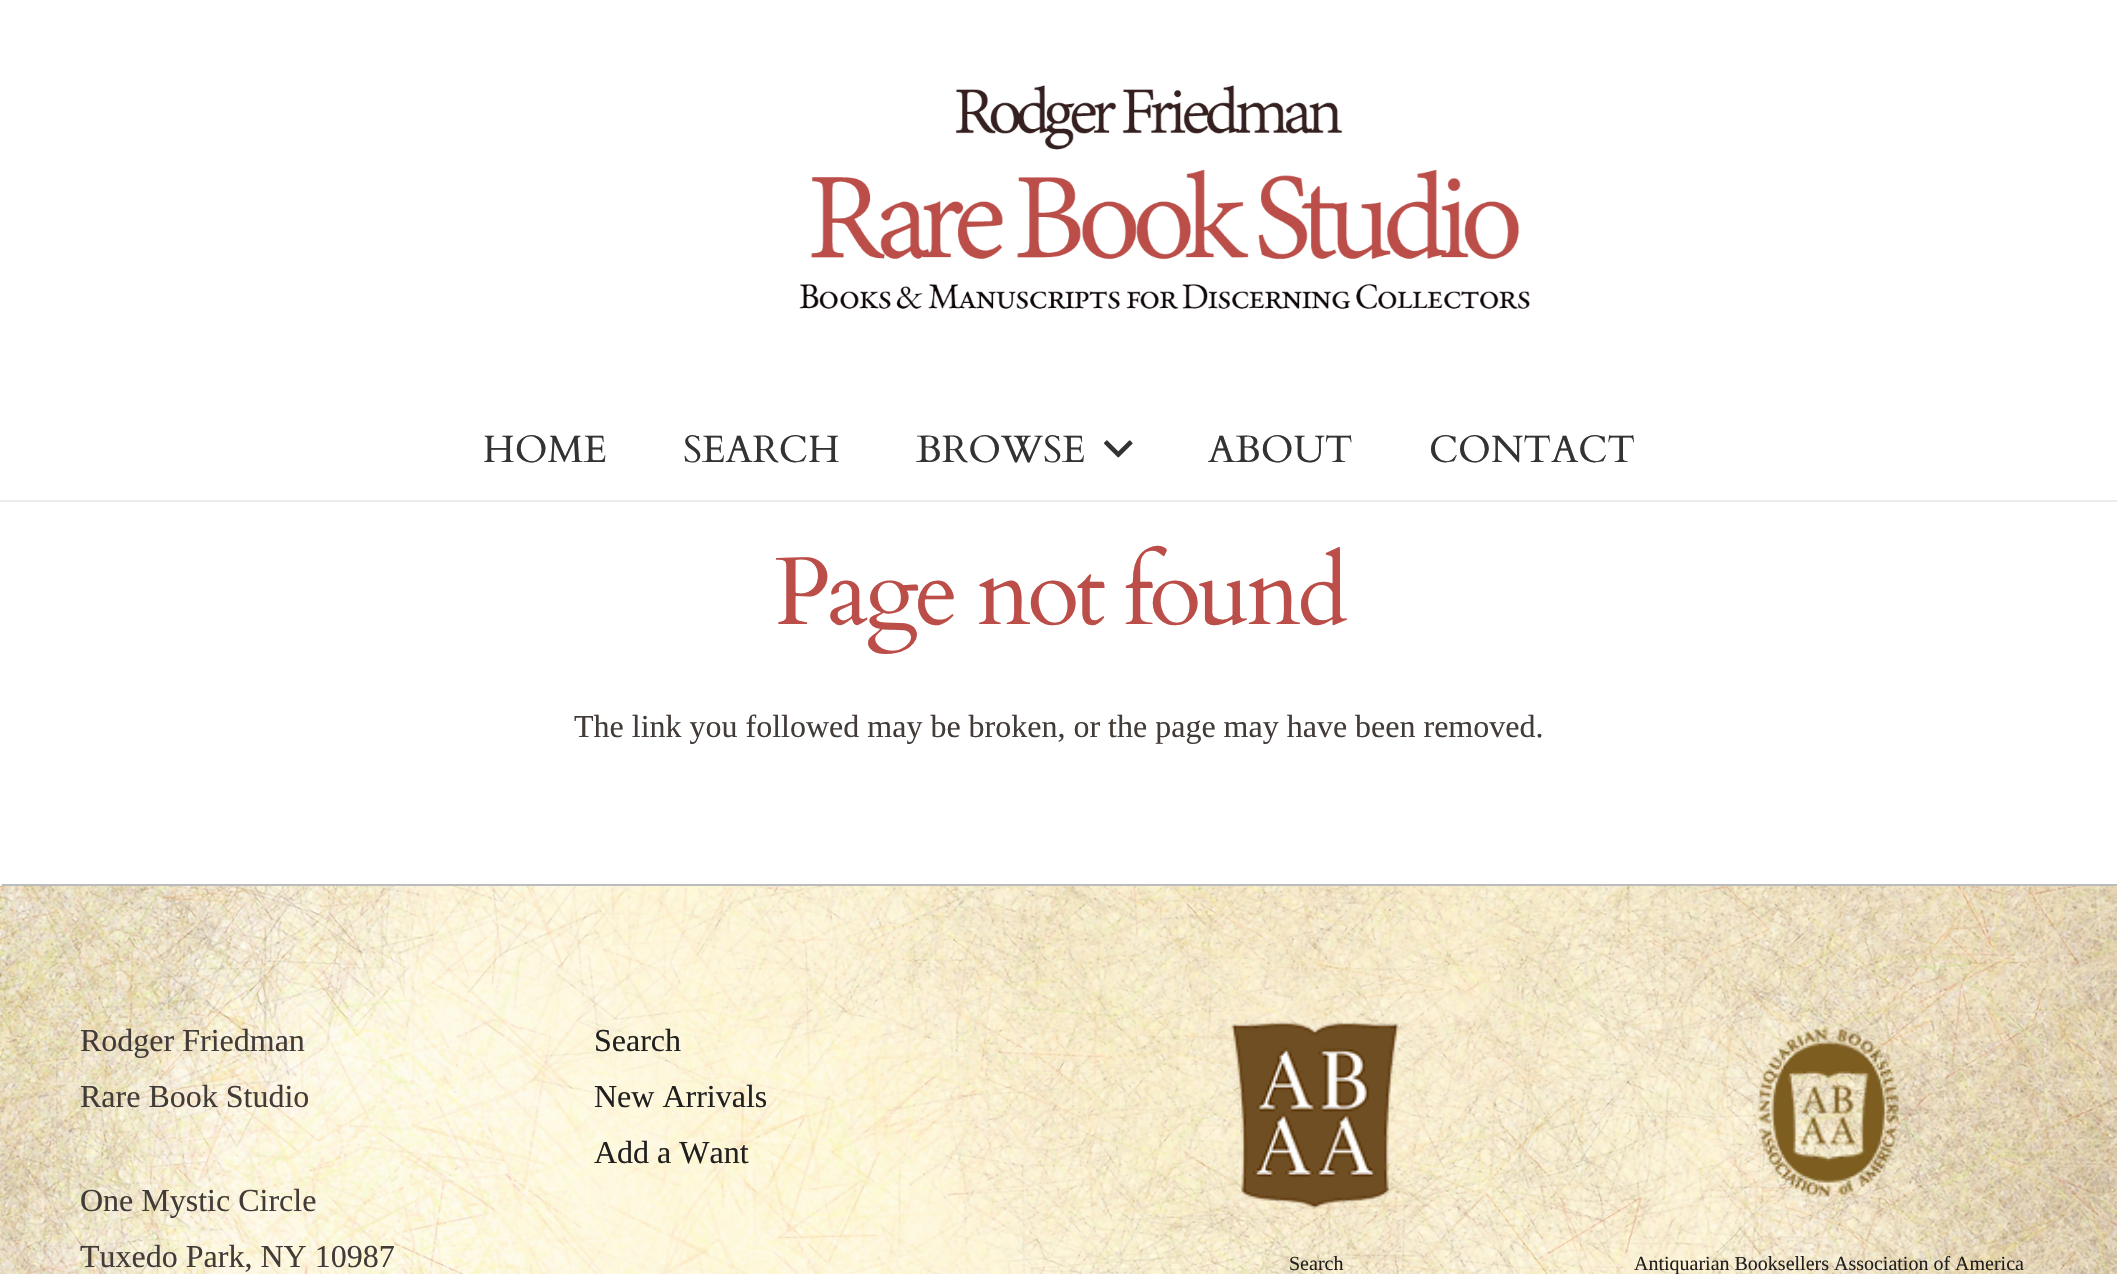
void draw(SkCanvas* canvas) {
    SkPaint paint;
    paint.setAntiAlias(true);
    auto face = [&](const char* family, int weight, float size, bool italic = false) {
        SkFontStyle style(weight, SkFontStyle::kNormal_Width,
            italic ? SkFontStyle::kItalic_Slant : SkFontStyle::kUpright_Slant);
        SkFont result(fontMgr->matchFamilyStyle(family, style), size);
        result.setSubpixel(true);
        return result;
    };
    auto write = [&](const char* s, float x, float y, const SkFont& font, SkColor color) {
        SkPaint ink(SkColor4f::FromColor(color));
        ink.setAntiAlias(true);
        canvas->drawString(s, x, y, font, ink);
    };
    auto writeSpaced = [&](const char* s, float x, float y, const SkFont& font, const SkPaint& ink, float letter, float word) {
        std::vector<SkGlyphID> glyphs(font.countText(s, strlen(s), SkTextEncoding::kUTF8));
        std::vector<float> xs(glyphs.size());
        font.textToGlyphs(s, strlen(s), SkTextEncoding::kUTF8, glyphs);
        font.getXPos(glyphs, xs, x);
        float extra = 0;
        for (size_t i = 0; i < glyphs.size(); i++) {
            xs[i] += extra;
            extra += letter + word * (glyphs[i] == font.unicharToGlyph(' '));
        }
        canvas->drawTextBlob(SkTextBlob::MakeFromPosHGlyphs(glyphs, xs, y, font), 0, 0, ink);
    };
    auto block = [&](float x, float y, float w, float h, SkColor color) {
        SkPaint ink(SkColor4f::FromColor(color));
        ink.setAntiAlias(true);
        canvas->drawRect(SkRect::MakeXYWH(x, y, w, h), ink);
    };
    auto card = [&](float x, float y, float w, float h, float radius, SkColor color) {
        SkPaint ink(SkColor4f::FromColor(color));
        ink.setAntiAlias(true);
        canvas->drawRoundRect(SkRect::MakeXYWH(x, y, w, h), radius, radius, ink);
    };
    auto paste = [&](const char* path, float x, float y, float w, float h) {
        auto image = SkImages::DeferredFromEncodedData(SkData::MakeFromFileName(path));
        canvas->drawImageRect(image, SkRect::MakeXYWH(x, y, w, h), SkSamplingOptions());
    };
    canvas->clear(SK_ColorWHITE);
    paste("pic1.png", 799, 85, 731, 224);
    block(0, 500, 2117, 2, SkColorSetRGB(235, 235, 235));
    auto kFont1 = face("Cardo", 400, 38);
    write("HOME", 483, 462, kFont1, SkColorSetRGB(51, 51, 51));
    write("SEARCH", 683, 462, kFont1, SkColorSetRGB(51, 51, 51));
    write("BROWSE", 916, 462, kFont1, SkColorSetRGB(51, 51, 51));
    paste("pic2.png", 1104, 440, 29, 18);
    write("ABOUT", 1208, 462, kFont1, SkColorSetRGB(51, 51, 51));
    write("CONTACT", 1429, 462, kFont1, SkColorSetRGB(51, 51, 51));
    auto kFont2 = face("Cardo", 400, 96);
    paint.setColor(SkColorSetRGB(187, 78, 73));
    writeSpaced("Page not found", 774, 624, kFont2, paint, -3.8f, 0);
    auto kFont3 = face("Liberation Serif", 400, 32);
    write("The link you followed may be broken, or the page may have been removed.", 574, 737, kFont3, SkColorSetRGB(66, 59, 56));
    card(0, 884, 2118, 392, 2, SkColorSetRGB(239, 241, 241));
    block(2, 884, 2115, 2, SkColorSetRGB(187, 188, 188));
    paste("pic3.png", 0, 886, 2117, 388);
    write("Rodger Friedman", 80, 1051, kFont3, SkColorSetRGB(66, 59, 56));
    write("Rare Book Studio", 80, 1107, kFont3, SkColorSetRGB(66, 59, 56));
    write("One Mystic Circle", 80, 1211, kFont3, SkColorSetRGB(66, 59, 56));
    write("Tuxedo Park, NY 10987", 80, 1267, kFont3, SkColorSetRGB(66, 59, 56));
    write("Search", 594, 1051, kFont3, SkColorSetRGB(33, 32, 30));
    write("New Arrivals", 594, 1107, kFont3, SkColorSetRGB(33, 32, 30));
    write("Add a Want", 594, 1163, kFont3, SkColorSetRGB(33, 32, 30));
    paste("pic4.png", 1231, 1021, 168, 188);
    auto kFont4 = face("Liberation Serif", 400, 20);
    write("Search", 1289, 1270, kFont4, SkColorSetRGB(33, 32, 30));
    paste("pic5.png", 1757, 1027, 142, 170);
    write("Antiquarian Booksellers Association of America", 1634, 1270, kFont4, SkColorSetRGB(33, 32, 30));
}
